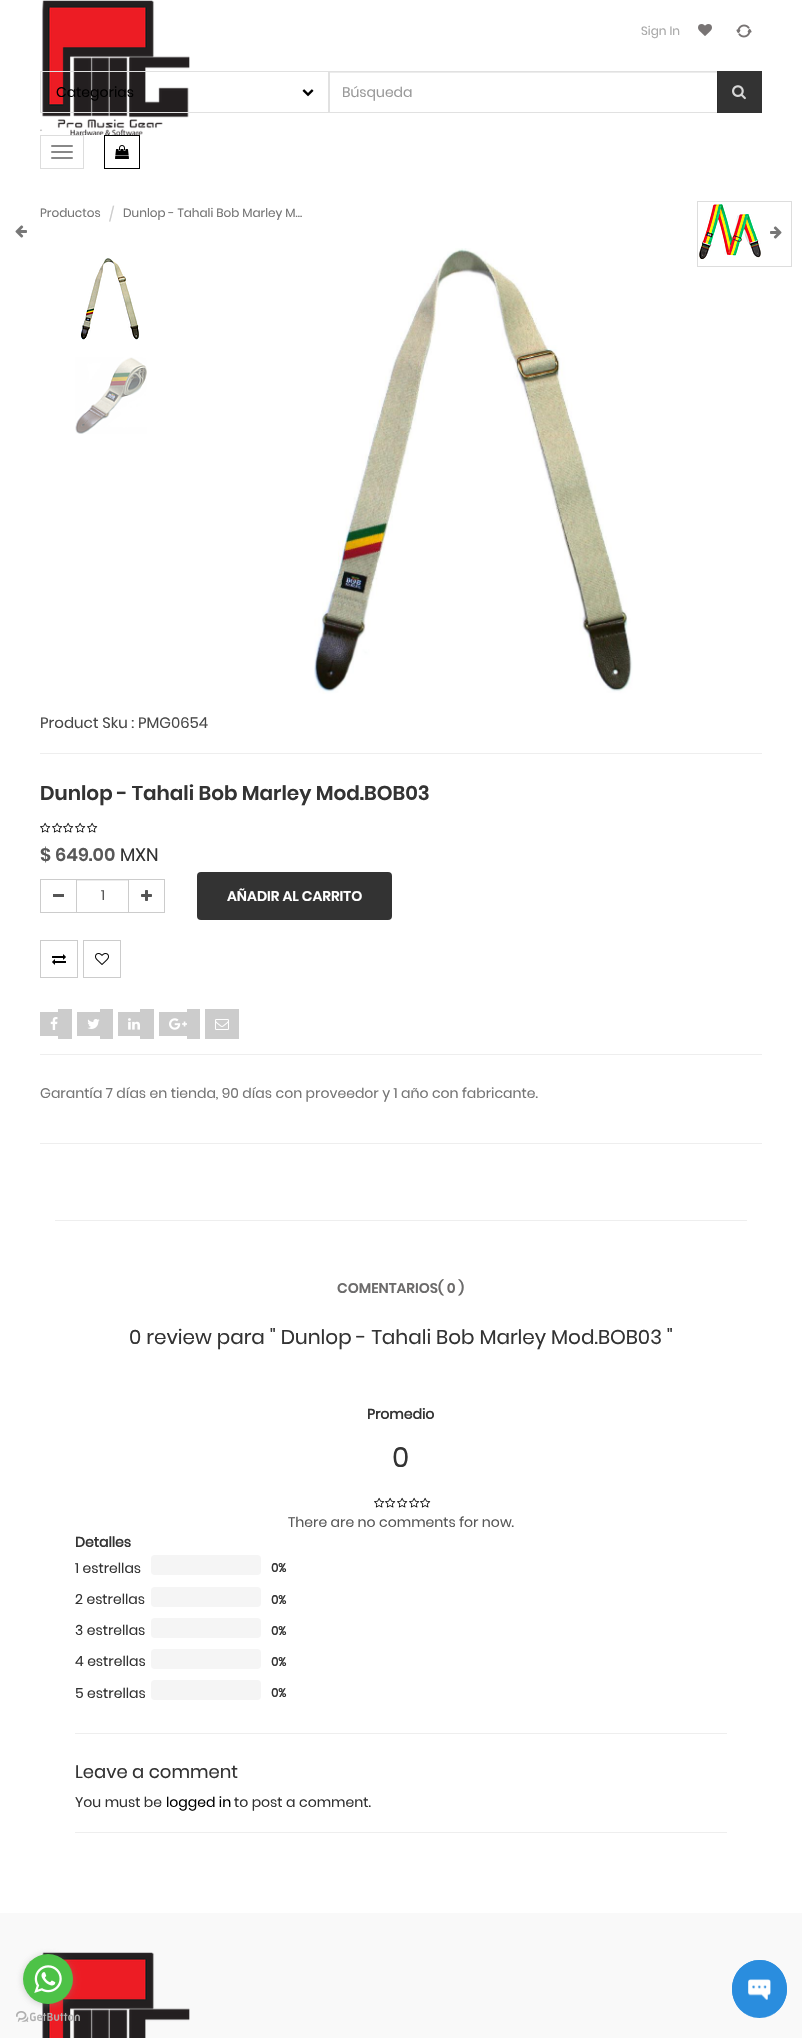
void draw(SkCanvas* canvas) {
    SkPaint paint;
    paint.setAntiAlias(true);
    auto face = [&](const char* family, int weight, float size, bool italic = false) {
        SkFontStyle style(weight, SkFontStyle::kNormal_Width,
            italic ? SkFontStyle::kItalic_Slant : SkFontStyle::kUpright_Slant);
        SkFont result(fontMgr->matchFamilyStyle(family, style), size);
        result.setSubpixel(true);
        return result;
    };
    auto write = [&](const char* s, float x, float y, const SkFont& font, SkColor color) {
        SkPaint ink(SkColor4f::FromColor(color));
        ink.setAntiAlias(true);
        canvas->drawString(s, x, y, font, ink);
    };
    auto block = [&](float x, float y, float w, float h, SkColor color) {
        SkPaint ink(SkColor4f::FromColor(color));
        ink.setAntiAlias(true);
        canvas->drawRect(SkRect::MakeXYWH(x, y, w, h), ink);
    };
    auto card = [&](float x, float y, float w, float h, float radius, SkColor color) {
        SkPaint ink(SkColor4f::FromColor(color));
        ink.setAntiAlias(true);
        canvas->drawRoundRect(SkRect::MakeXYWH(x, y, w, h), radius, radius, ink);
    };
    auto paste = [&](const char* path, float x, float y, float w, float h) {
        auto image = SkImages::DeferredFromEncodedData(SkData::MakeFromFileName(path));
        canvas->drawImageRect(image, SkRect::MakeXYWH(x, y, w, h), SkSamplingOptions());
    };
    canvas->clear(SK_ColorWHITE);
    auto kFont1 = face("Poppins", 400, 12);
    write("Sign In", 641, 35, kFont1, SkColorSetRGB(168, 168, 168));
    paste("pic1.png", 698, 24, 14, 12);
    paste("pic2.png", 736, 24, 16, 14);
    paste("pic3.png", 40, 0, 150, 135);
    paint.setStyle(SkPaint::kStroke_Style);
    paint.setStrokeWidth(1);
    paint.setColor(SkColorSetRGB(225, 225, 225));
    canvas->drawRect(SkRect::MakeXYWH(40.5f, 71.5f, 288, 41), paint);
    auto kFont2 = face("Poppins", 400, 14);
    write("Categorias", 56, 97, kFont2, SK_ColorBLACK);
    paste("pic4.png", 302, 89, 12, 8);
    block(330, 72, 387, 1, SkColorSetRGB(236, 236, 236));
    canvas->drawRect(SkRect::MakeXYWH(329.5f, 71.5f, 388, 41), paint);
    write("Búsqueda", 342, 97, kFont2, SkColorSetRGB(153, 153, 153));
    block(717, 71, 45, 42, SkColorSetARGB(204, 0, 0, 0));
    paste("pic5.png", 732, 85, 14, 15);
    paint.setColor(SkColorSetRGB(221, 221, 221));
    canvas->drawRect(SkRect::MakeXYWH(40.5f, 135.5f, 43, 33), paint);
    card(51, 145, 22, 2, 1, SkColorSetRGB(136, 136, 136));
    card(51, 151, 22, 2, 1, SkColorSetRGB(136, 136, 136));
    card(51, 157, 22, 2, 1, SkColorSetRGB(136, 136, 136));
    paint.setColor(SK_ColorBLACK);
    canvas->drawRect(SkRect::MakeXYWH(104.5f, 135.5f, 35, 33), paint);
    paste("pic6.png", 115, 145, 14, 14);
    paste("pic7.png", 15, 225, 12, 13);
    write("Productos", 40, 217, kFont1, SkColorSetRGB(117, 117, 117));
    write("/", 109, 219, kFont2, SkColorSetRGB(204, 204, 204));
    write("Dunlop - Tahali Bob Marley M…", 123, 217, kFont1, SkColorSetRGB(117, 117, 117));
    paste("pic8.png", 80, 258, 59, 82);
    paste("pic9.png", 75, 357, 72, 77);
    paste("pic10.png", 314, 248, 319, 446);
    auto kFont3 = face("Poppins", 400, 15);
    write("Product Sku : PMG0654", 40, 728, kFont3, SkColorSetRGB(72, 72, 72));
    block(40, 753, 722, 1, SkColorSetRGB(238, 238, 238));
    auto kFont4 = face("Poppins", 600, 20);
    write("Dunlop - Tahali Bob Marley Mod.BOB03", 40, 800, kFont4, SkColorSetRGB(51, 51, 51));
    paste("pic11.png", 40, 822, 11, 11);
    paste("pic11.png", 52, 822, 11, 11);
    paste("pic11.png", 63, 822, 11, 11);
    paste("pic11.png", 75, 822, 11, 11);
    paste("pic11.png", 87, 822, 11, 11);
    auto kFont5 = face("Poppins", 600, 18);
    write("$ 649.00", 40, 861, kFont5, SkColorSetRGB(88, 88, 88));
    auto kFont6 = face("Poppins", 400, 18);
    write("MXN", 120, 861, kFont6, SkColorSetRGB(51, 51, 51));
    block(40, 879, 36, 1, SkColorSetRGB(204, 204, 204));
    block(40, 912, 36, 1, SkColorSetRGB(204, 204, 204));
    block(40, 879, 1, 34, SkColorSetRGB(204, 204, 204));
    block(53, 894, 11, 3, SkColorSetRGB(85, 85, 85));
    block(77, 880, 51, 1, SkColorSetRGB(236, 236, 236));
    paint.setColor(SkColorSetRGB(204, 204, 204));
    canvas->drawRect(SkRect::MakeXYWH(76.5f, 879.5f, 52, 33), paint);
    write("1", 101, 900, kFont2, SkColorSetRGB(88, 88, 88));
    block(129, 879, 36, 1, SkColorSetRGB(204, 204, 204));
    block(164, 879, 1, 34, SkColorSetRGB(204, 204, 204));
    block(129, 912, 36, 1, SkColorSetRGB(204, 204, 204));
    paste("pic12.png", 141, 890, 11, 11);
    card(197, 872, 195, 48, 4, SkColorSetRGB(51, 51, 51));
    auto kFont7 = face("Poppins", 600, 14);
    write("AÑADIR AL CARRITO", 227, 901, kFont7, SK_ColorWHITE);
    canvas->drawRect(SkRect::MakeXYWH(40.5f, 940.5f, 37, 37), paint);
    paste("pic13.png", 52, 954, 14, 11);
    canvas->drawRect(SkRect::MakeXYWH(83.5f, 940.5f, 37, 37), paint);
    paste("pic14.png", 95, 953, 14, 12);
    block(40, 1012, 18, 24, SkColorSetRGB(204, 204, 204));
    block(58, 1009, 14, 30, SkColorSetRGB(204, 204, 204));
    paste("pic15.png", 50, 1017, 8, 13);
    block(77, 1012, 23, 24, SkColorSetRGB(204, 204, 204));
    block(100, 1009, 13, 30, SkColorSetRGB(204, 204, 204));
    paste("pic16.png", 87, 1019, 13, 10);
    block(118, 1012, 22, 24, SkColorSetRGB(204, 204, 204));
    block(140, 1009, 14, 30, SkColorSetRGB(204, 204, 204));
    paste("pic17.png", 128, 1018, 12, 12);
    block(159, 1012, 28, 24, SkColorSetRGB(204, 204, 204));
    block(187, 1009, 13, 30, SkColorSetRGB(204, 204, 204));
    paste("pic18.png", 169, 1018, 18, 12);
    block(205, 1009, 34, 30, SkColorSetRGB(204, 204, 204));
    paste("pic19.png", 215, 1019, 14, 11);
    block(40, 1054, 722, 1, SkColorSetRGB(238, 238, 238));
    write("Garantía 7 días en tienda, 90 días con proveedor y 1 año con fabricante.", 40, 1098, kFont2, SkColorSetRGB(117, 117, 117));
    paint.setColor(SkColorSetRGB(221, 221, 221));
    canvas->drawRect(SkRect::MakeXYWH(697.5f, 201.5f, 94, 65), paint);
    paste("pic20.png", 699, 204, 62, 56);
    paste("pic21.png", 770, 226, 12, 13);
    block(40, 1143, 722, 1, SkColorSetRGB(238, 238, 238));
    block(55, 1220, 692, 1, SkColorSetRGB(238, 238, 238));
    write("COMENTARIOS( 0 )", 337, 1293, kFont7, SkColorSetRGB(108, 107, 107));
    auto kFont8 = face("Poppins", 400, 20);
    write("0 review para \" Dunlop - Tahali Bob Marley Mod.BOB03 \"", 129, 1344, kFont8, SkColorSetRGB(51, 51, 51));
    auto kFont9 = face("Poppins", 700, 14);
    write("Promedio", 367, 1419, kFont9, SkColorSetRGB(51, 51, 51));
    auto kFont10 = face("Poppins", 400, 28);
    write("0", 392, 1467, kFont10, SkColorSetRGB(51, 51, 51));
    paste("pic11.png", 374, 1497, 11, 11);
    paste("pic11.png", 385, 1497, 11, 11);
    paste("pic11.png", 397, 1497, 11, 11);
    paste("pic11.png", 409, 1497, 11, 11);
    paste("pic11.png", 420, 1497, 11, 11);
    write("There are no comments for now.", 288, 1527, kFont2, SkColorSetRGB(88, 88, 88));
    write("Detalles", 75, 1547, kFont9, SkColorSetRGB(51, 51, 51));
    write("1 estrellas", 75, 1573, kFont2, SkColorSetRGB(51, 51, 51));
    card(151, 1555, 110, 20, 4, SkColorSetRGB(245, 245, 245));
    auto kFont11 = face("Poppins", 700, 12);
    write("0%", 271, 1572, kFont11, SkColorSetRGB(51, 51, 51));
    write("2 estrellas", 75, 1604, kFont2, SkColorSetRGB(51, 51, 51));
    card(151, 1587, 110, 20, 4, SkColorSetRGB(245, 245, 245));
    write("0%", 271, 1604, kFont11, SkColorSetRGB(51, 51, 51));
    write("3 estrellas", 75, 1635, kFont2, SkColorSetRGB(51, 51, 51));
    card(151, 1618, 110, 20, 4, SkColorSetRGB(245, 245, 245));
    write("0%", 271, 1635, kFont11, SkColorSetRGB(51, 51, 51));
    write("4 estrellas", 75, 1666, kFont2, SkColorSetRGB(51, 51, 51));
    card(151, 1649, 110, 20, 4, SkColorSetRGB(245, 245, 245));
    write("0%", 271, 1666, kFont11, SkColorSetRGB(51, 51, 51));
    write("5 estrellas", 75, 1698, kFont2, SkColorSetRGB(51, 51, 51));
    card(151, 1680, 110, 20, 4, SkColorSetRGB(245, 245, 245));
    write("0%", 271, 1697, kFont11, SkColorSetRGB(51, 51, 51));
    block(75, 1733, 652, 1, SkColorSetRGB(238, 238, 238));
    write("Leave a comment", 75, 1778, kFont6, SkColorSetRGB(51, 51, 51));
    write("You must be", 75, 1807, kFont2, SkColorSetRGB(51, 51, 51));
    write("logged in", 166, 1807, kFont2, SK_ColorBLACK);
    write("to post a comment.", 234, 1807, kFont2, SkColorSetRGB(51, 51, 51));
    block(75, 1832, 652, 1, SkColorSetRGB(238, 238, 238));
    block(0, 1913, 802, 125, SkColorSetRGB(249, 249, 249));
    paste("pic22.png", 42, 1952, 148, 86);
    paste("pic24.png", 16, 2011, 64, 11);
    paint.setStyle(SkPaint::kFill_Style);
    paint.setColor(SkColorSetARGB(102, 136, 136, 136));
    paint.setMaskFilter(SkMaskFilter::MakeBlur(kNormal_SkBlurStyle, 3.5f));
    canvas->drawRoundRect(SkRect::MakeXYWH(23, 1955, 50, 50), 25, 25, paint);
    paint.setMaskFilter(nullptr);
    paint.setColor(SkColorSetRGB(77, 194, 71));
    canvas->drawCircle(48, 1979, 25, paint);
    paste("pic23.png", 34, 1965, 28, 28);
    paint.setColor(SkColorSetRGB(42, 141, 222));
    canvas->drawOval(SkRect::MakeXYWH(732, 1960, 55, 58), paint);
    canvas->drawPath(SkPathBuilder(SkPathFillType::kEvenOdd).moveTo(760, 1960).cubicTo(775, 1960, 787, 1973, 787, 1989).cubicTo(787, 2005, 775, 2018, 760, 2018).cubicTo(744, 2018, 732, 2005, 732, 1989).cubicTo(732, 1973, 744, 1960, 760, 1960).close().moveTo(760, 1961).cubicTo(774, 1961, 786, 1974, 786, 1989).cubicTo(786, 2005, 774, 2018, 760, 2018).cubicTo(745, 2018, 733, 2005, 733, 1989).cubicTo(733, 1974, 745, 1961, 760, 1961).close().detach(), paint);
    paste("pic25.png", 748, 1979, 23, 21);
}
